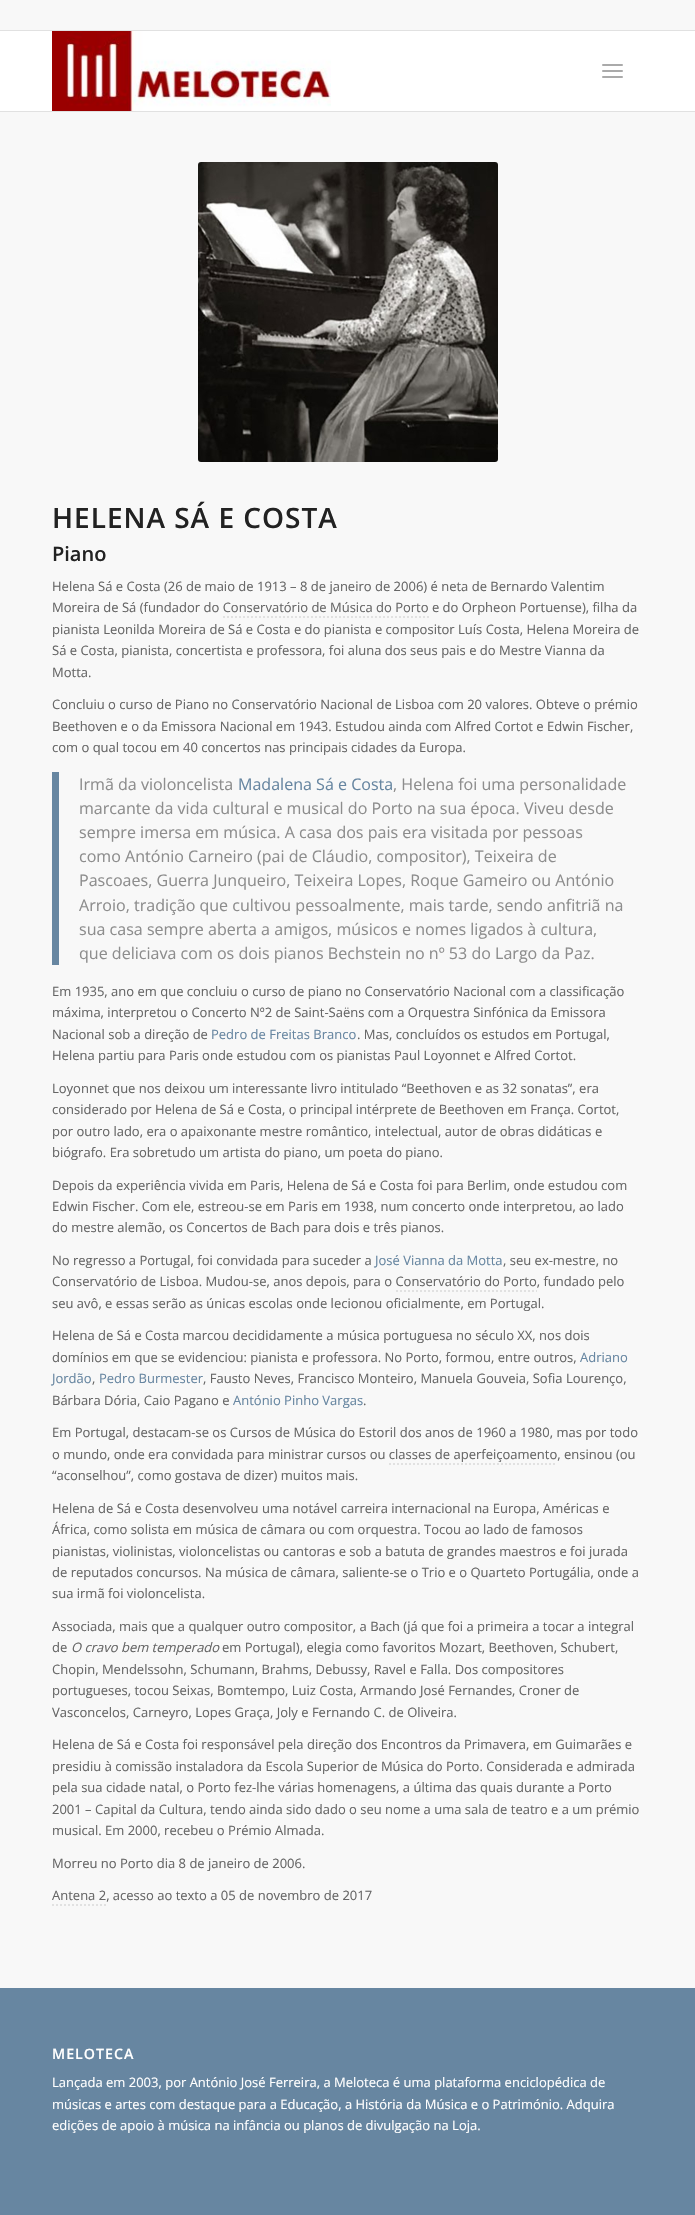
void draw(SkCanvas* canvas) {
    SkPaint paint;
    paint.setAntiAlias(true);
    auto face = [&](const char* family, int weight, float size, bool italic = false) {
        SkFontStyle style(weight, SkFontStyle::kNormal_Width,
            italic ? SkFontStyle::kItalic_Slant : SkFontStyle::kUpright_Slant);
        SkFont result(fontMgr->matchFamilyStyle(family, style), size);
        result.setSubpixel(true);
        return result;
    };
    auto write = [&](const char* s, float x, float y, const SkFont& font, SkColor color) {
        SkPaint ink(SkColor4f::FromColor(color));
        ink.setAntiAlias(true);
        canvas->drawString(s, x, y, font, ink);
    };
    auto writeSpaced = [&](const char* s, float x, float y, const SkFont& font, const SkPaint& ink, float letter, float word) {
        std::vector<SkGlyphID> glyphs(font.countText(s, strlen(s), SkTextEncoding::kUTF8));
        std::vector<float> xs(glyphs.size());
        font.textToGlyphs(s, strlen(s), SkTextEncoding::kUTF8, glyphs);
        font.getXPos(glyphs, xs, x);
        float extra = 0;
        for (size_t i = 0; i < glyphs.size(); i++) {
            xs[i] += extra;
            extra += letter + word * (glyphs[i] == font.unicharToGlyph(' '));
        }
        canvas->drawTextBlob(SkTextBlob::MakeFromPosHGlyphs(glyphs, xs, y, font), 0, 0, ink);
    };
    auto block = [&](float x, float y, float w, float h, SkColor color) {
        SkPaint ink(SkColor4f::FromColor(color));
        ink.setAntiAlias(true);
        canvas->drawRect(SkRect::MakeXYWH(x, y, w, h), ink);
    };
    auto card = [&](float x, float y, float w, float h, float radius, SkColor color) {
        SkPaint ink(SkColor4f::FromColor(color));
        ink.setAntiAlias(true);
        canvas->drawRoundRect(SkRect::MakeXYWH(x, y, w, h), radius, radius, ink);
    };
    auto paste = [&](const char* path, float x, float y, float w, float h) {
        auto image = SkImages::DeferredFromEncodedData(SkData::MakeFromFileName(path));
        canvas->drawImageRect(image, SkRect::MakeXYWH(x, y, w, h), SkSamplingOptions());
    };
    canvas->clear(SkColorSetRGB(248, 248, 248));
    block(0, 30, 695, 1, SkColorSetRGB(225, 225, 225));
    block(0, 31, 695, 80, SK_ColorWHITE);
    block(0, 111, 695, 1, SkColorSetRGB(225, 225, 225));
    paste("pic1.png", 52, 31, 279, 80);
    card(602, 70, 21, 2, 1, SkColorSetRGB(170, 170, 170));
    card(602, 64, 21, 2, 1, SkColorSetRGB(170, 170, 170));
    card(602, 76, 21, 2, 1, SkColorSetRGB(170, 170, 170));
    paste("pic2.png", 198, 162, 300, 300);
    auto kFont1 = face("Open Sans", 600, 28);
    paint.setColor(SkColorSetRGB(34, 34, 34));
    writeSpaced("HELENA SÁ E COSTA", 52, 528, kFont1, paint, 1, 0);
    auto kFont2 = face("Open Sans", 600, 20);
    write("Piano", 52, 561, kFont2, SkColorSetRGB(34, 34, 34));
    auto kFont3 = face("Open Sans", 400, 13);
    write("Helena Sá e Costa (26 de maio de 1913 – 8 de janeiro de 2006) é neta de Bernardo Valentim", 52, 591, kFont3, SkColorSetRGB(102, 102, 102));
    write("Moreira de Sá (fundador do Conservatório de Música do Porto e do Orpheon Portuense), filha da", 52, 612, kFont3, SkColorSetRGB(102, 102, 102));
    paint.setStyle(SkPaint::kStroke_Style);
    paint.setStrokeWidth(2);
    paint.setColor(SkColorSetRGB(225, 225, 225));
    paint.setPathEffect(SkDashPathEffect::Make({{2, 2}}, 0));
    canvas->drawPath(SkPathBuilder().moveTo(223, 617).lineTo(429, 617).detach(), paint);
    paint.setPathEffect(nullptr);
    write("pianista Leonilda Moreira de Sá e Costa e do pianista e compositor Luís Costa, Helena Moreira de", 52, 634, kFont3, SkColorSetRGB(102, 102, 102));
    write("Sá e Costa, pianista, concertista e professora, foi aluna dos seus pais e do Mestre Vianna da", 52, 655, kFont3, SkColorSetRGB(102, 102, 102));
    write("Motta.", 52, 677, kFont3, SkColorSetRGB(102, 102, 102));
    write("Concluiu o curso de Piano no Conservatório Nacional de Lisboa com 20 valores. Obteve o prémio", 52, 709, kFont3, SkColorSetRGB(102, 102, 102));
    write("Beethoven e o da Emissora Nacional em 1943. Estudou ainda com Alfred Cortot e Edwin Fischer,", 52, 731, kFont3, SkColorSetRGB(102, 102, 102));
    write("com o qual tocou em 40 concertos nas principais cidades da Europa.", 52, 752, kFont3, SkColorSetRGB(102, 102, 102));
    block(52, 772, 7, 193, SkColorSetRGB(103, 134, 161));
    auto kFont4 = face("Open Sans", 400, 16.05f);
    write("Irmã da violoncelista", 79, 790, kFont4, SkColorSetRGB(141, 141, 141));
    write("Madalena Sá e Costa", 238, 790, kFont4, SkColorSetRGB(103, 134, 161));
    write(", Helena foi uma personalidade", 393, 790, kFont4, SkColorSetRGB(141, 141, 141));
    write("marcante da vida cultural e musical do Porto na sua época. Viveu desde", 79, 814, kFont4, SkColorSetRGB(141, 141, 141));
    write("sempre imersa em música. A casa dos pais era visitada por pessoas", 79, 838, kFont4, SkColorSetRGB(141, 141, 141));
    write("como António Carneiro (pai de Cláudio, compositor), Teixeira de", 79, 862, kFont4, SkColorSetRGB(141, 141, 141));
    write("Pascoaes, Guerra Junqueiro, Teixeira Lopes, Roque Gameiro ou António", 79, 886, kFont4, SkColorSetRGB(141, 141, 141));
    write("Arroio, tradição que cultivou pessoalmente, mais tarde, sendo anfitriã na", 79, 911, kFont4, SkColorSetRGB(141, 141, 141));
    write("sua casa sempre aberta a amigos, músicos e nomes ligados à cultura,", 79, 935, kFont4, SkColorSetRGB(141, 141, 141));
    write("que deliciava com os dois pianos Bechstein no nº 53 do Largo da Paz.", 79, 959, kFont4, SkColorSetRGB(141, 141, 141));
    write("Em 1935, ano em que concluiu o curso de piano no Conservatório Nacional com a classificação", 52, 996, kFont3, SkColorSetRGB(102, 102, 102));
    write("máxima, interpretou o Concerto Nº2 de Saint-Saëns com a Orquestra Sinfónica da Emissora", 52, 1017, kFont3, SkColorSetRGB(102, 102, 102));
    write("Nacional sob a direção de", 52, 1039, kFont3, SkColorSetRGB(102, 102, 102));
    write("Pedro de Freitas Branco", 211, 1039, kFont3, SkColorSetRGB(103, 134, 161));
    write(". Mas, concluídos os estudos em Portugal,", 357, 1039, kFont3, SkColorSetRGB(102, 102, 102));
    write("Helena partiu para Paris onde estudou com os pianistas Paul Loyonnet e Alfred Cortot.", 52, 1060, kFont3, SkColorSetRGB(102, 102, 102));
    write("Loyonnet que nos deixou um interessante livro intitulado “Beethoven e as 32 sonatas”, era", 52, 1093, kFont3, SkColorSetRGB(102, 102, 102));
    write("considerado por Helena de Sá e Costa, o principal intérprete de Beethoven em França. Cortot,", 52, 1114, kFont3, SkColorSetRGB(102, 102, 102));
    write("por outro lado, era o apaixonante mestre romântico, intelectual, autor de obras didáticas e", 52, 1136, kFont3, SkColorSetRGB(102, 102, 102));
    write("biógrafo. Era sobretudo um artista do piano, um poeta do piano.", 52, 1157, kFont3, SkColorSetRGB(102, 102, 102));
    write("Depois da experiência vivida em Paris, Helena de Sá e Costa foi para Berlim, onde estudou com", 52, 1190, kFont3, SkColorSetRGB(102, 102, 102));
    write("Edwin Fischer. Com ele, estreou-se em Paris em 1938, num concerto onde interpretou, ao lado", 52, 1211, kFont3, SkColorSetRGB(102, 102, 102));
    write("do mestre alemão, os Concertos de Bach para dois e três pianos.", 52, 1232, kFont3, SkColorSetRGB(102, 102, 102));
    write("No regresso a Portugal, foi convidada para suceder a", 52, 1265, kFont3, SkColorSetRGB(102, 102, 102));
    write("José Vianna da Motta", 375, 1265, kFont3, SkColorSetRGB(103, 134, 161));
    write(", seu ex-mestre, no", 503, 1265, kFont3, SkColorSetRGB(102, 102, 102));
    write("Conservatório de Lisboa. Mudou-se, anos depois, para o Conservatório do Porto, fundado pelo", 52, 1286, kFont3, SkColorSetRGB(102, 102, 102));
    paint.setPathEffect(SkDashPathEffect::Make({{2, 2}}, 0));
    canvas->drawPath(SkPathBuilder().moveTo(396, 1291).lineTo(537, 1291).detach(), paint);
    paint.setPathEffect(nullptr);
    write("seu avô, e essas serão as únicas escolas onde lecionou oficialmente, em Portugal.", 52, 1308, kFont3, SkColorSetRGB(102, 102, 102));
    write("Helena de Sá e Costa marcou decididamente a música portuguesa no século XX, nos dois", 52, 1340, kFont3, SkColorSetRGB(102, 102, 102));
    write("domínios em que se evidenciou: pianista e professora. No Porto, formou, entre outros,", 52, 1362, kFont3, SkColorSetRGB(102, 102, 102));
    write("Adriano", 580, 1362, kFont3, SkColorSetRGB(103, 134, 161));
    write("Jordão", 52, 1383, kFont3, SkColorSetRGB(103, 134, 161));
    write(",", 92, 1383, kFont3, SkColorSetRGB(102, 102, 102));
    write("Pedro Burmester", 99, 1383, kFont3, SkColorSetRGB(103, 134, 161));
    write(", Fausto Neves, Francisco Monteiro, Manuela Gouveia, Sofia Lourenço,", 203, 1383, kFont3, SkColorSetRGB(102, 102, 102));
    write("Bárbara Dória, Caio Pagano e", 52, 1405, kFont3, SkColorSetRGB(102, 102, 102));
    write("António Pinho Vargas", 233, 1405, kFont3, SkColorSetRGB(103, 134, 161));
    write(".", 363, 1405, kFont3, SkColorSetRGB(102, 102, 102));
    write("Em Portugal, destacam-se os Cursos de Música do Estoril dos anos de 1960 a 1980, mas por todo", 52, 1437, kFont3, SkColorSetRGB(102, 102, 102));
    write("o mundo, onde era convidada para ministrar cursos ou classes de aperfeiçoamento, ensinou (ou", 52, 1459, kFont3, SkColorSetRGB(102, 102, 102));
    paint.setPathEffect(SkDashPathEffect::Make({{2, 2}}, 0));
    canvas->drawPath(SkPathBuilder().moveTo(389, 1464).lineTo(557, 1464).detach(), paint);
    paint.setPathEffect(nullptr);
    write("“aconselhou”, como gostava de dizer) muitos mais.", 52, 1480, kFont3, SkColorSetRGB(102, 102, 102));
    write("Helena de Sá e Costa desenvolveu uma notável carreira internacional na Europa, Américas e", 52, 1513, kFont3, SkColorSetRGB(102, 102, 102));
    write("África, como solista em música de câmara ou com orquestra. Tocou ao lado de famosos", 52, 1534, kFont3, SkColorSetRGB(102, 102, 102));
    write("pianistas, violinistas, violoncelistas ou cantoras e sob a batuta de grandes maestros e foi jurada", 52, 1556, kFont3, SkColorSetRGB(102, 102, 102));
    write("de reputados concursos. Na música de câmara, saliente-se o Trio e o Quarteto Portugália, onde a", 52, 1577, kFont3, SkColorSetRGB(102, 102, 102));
    write("sua irmã foi violoncelista.", 52, 1598, kFont3, SkColorSetRGB(102, 102, 102));
    write("Associada, mais que a qualquer outro compositor, a Bach (já que foi a primeira a tocar a integral", 52, 1631, kFont3, SkColorSetRGB(102, 102, 102));
    write("de", 52, 1652, kFont3, SkColorSetRGB(102, 102, 102));
    auto kFont5 = face("Open Sans", 400, 13, true);
    write("O cravo bem temperado", 71, 1652, kFont5, SkColorSetRGB(102, 102, 102));
    write("em Portugal), elegia como favoritos Mozart, Beethoven, Schubert,", 222, 1652, kFont3, SkColorSetRGB(102, 102, 102));
    write("Chopin, Mendelssohn, Schumann, Brahms, Debussy, Ravel e Falla. Dos compositores", 52, 1674, kFont3, SkColorSetRGB(102, 102, 102));
    write("portugueses, tocou Seixas, Bomtempo, Luiz Costa, Armando José Fernandes, Croner de", 52, 1695, kFont3, SkColorSetRGB(102, 102, 102));
    write("Vasconcelos, Carneyro, Lopes Graça, Joly e Fernando C. de Oliveira.", 52, 1717, kFont3, SkColorSetRGB(102, 102, 102));
    write("Helena de Sá e Costa foi responsável pela direção dos Encontros da Primavera, em Guimarães e", 52, 1749, kFont3, SkColorSetRGB(102, 102, 102));
    write("presidiu à comissão instaladora da Escola Superior de Música do Porto. Considerada e admirada", 52, 1771, kFont3, SkColorSetRGB(102, 102, 102));
    write("pela sua cidade natal, o Porto fez-lhe várias homenagens, a última das quais durante a Porto", 52, 1792, kFont3, SkColorSetRGB(102, 102, 102));
    write("2001 – Capital da Cultura, tendo ainda sido dado o seu nome a uma sala de teatro e a um prémio", 52, 1814, kFont3, SkColorSetRGB(102, 102, 102));
    write("musical. Em 2000, recebeu o Prémio Almada.", 52, 1835, kFont3, SkColorSetRGB(102, 102, 102));
    write("Morreu no Porto dia 8 de janeiro de 2006.", 52, 1868, kFont3, SkColorSetRGB(102, 102, 102));
    write("Antena 2, acesso ao texto a 05 de novembro de 2017", 52, 1900, kFont3, SkColorSetRGB(102, 102, 102));
    paint.setPathEffect(SkDashPathEffect::Make({{2, 2}}, 0));
    canvas->drawPath(SkPathBuilder().moveTo(52, 1905).lineTo(106, 1905).detach(), paint);
    paint.setPathEffect(nullptr);
    block(0, 1988, 695, 227, SkColorSetRGB(103, 134, 161));
    auto kFont6 = face("Open Sans", 600, 14.25f);
    paint.setStyle(SkPaint::kFill_Style);
    paint.setColor(SK_ColorWHITE);
    writeSpaced("MELOTECA", 52, 2059, kFont6, paint, 1, 0);
    write("Lançada em 2003, por António José Ferreira, a Meloteca é uma plataforma enciclopédica de", 52, 2087, kFont3, SK_ColorWHITE);
    write("músicas e artes com destaque para a Educação, a História da Música e o Património. Adquira", 52, 2109, kFont3, SK_ColorWHITE);
    write("edições de apoio à música na infância ou planos de divulgação na Loja.", 52, 2130, kFont3, SK_ColorWHITE);
}
